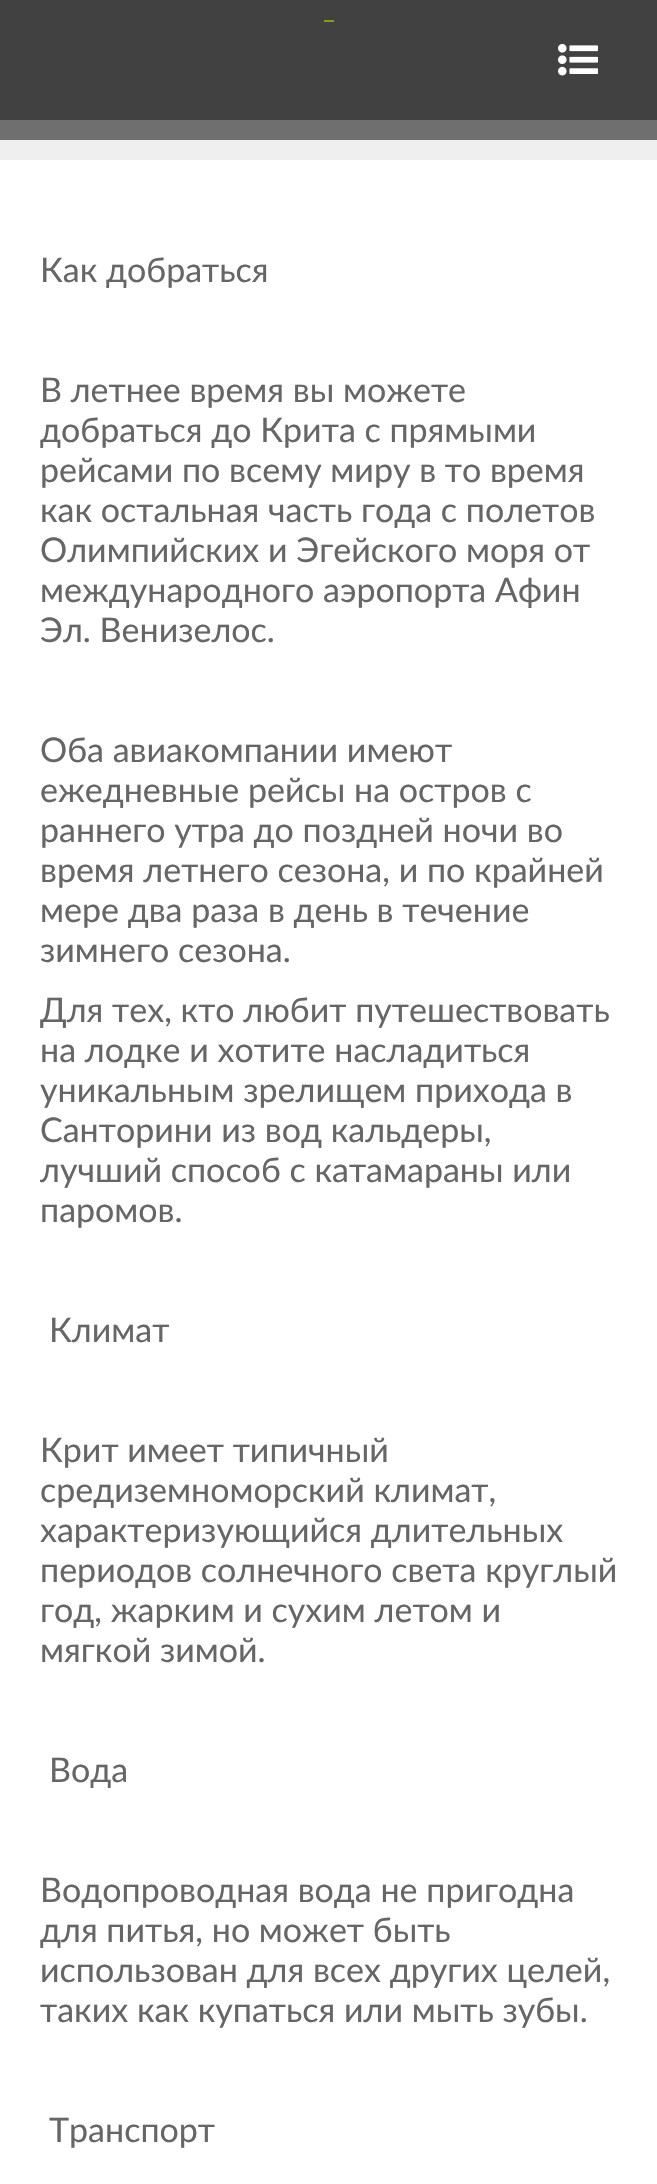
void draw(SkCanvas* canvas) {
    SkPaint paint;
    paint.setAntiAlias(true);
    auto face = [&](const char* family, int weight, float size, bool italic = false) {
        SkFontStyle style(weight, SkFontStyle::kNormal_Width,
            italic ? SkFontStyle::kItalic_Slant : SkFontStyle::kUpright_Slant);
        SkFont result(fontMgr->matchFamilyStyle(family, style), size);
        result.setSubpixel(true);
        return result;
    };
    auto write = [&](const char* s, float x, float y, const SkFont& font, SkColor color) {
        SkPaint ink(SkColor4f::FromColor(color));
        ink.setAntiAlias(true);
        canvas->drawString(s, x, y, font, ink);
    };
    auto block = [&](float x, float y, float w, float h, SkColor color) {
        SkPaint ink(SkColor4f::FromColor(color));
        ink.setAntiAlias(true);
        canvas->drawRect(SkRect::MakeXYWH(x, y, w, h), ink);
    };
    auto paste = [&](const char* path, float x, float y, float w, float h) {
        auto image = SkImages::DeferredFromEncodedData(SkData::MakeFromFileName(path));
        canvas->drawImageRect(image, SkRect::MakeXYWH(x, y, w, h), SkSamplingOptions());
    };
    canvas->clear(SK_ColorWHITE);
    block(0, 0, 657, 120, SkColorSetRGB(65, 65, 65));
    block(324, 20, 10, 2, SkColorSetRGB(136, 158, 25));
    paste("pic1.png", 558, 44, 40, 32);
    block(0, 120, 657, 20, SkColorSetRGB(111, 111, 111));
    block(0, 140, 657, 20, SkColorSetRGB(239, 239, 239));
    auto kFont1 = face("Lato", 400, 34);
    write("Как добраться", 40, 282, kFont1, SkColorSetRGB(102, 102, 102));
    write("В летнее время вы можете", 40, 402, kFont1, SkColorSetRGB(102, 102, 102));
    write("добраться до Крита с прямыми", 40, 442, kFont1, SkColorSetRGB(102, 102, 102));
    write("рейсами по всему миру в то время", 40, 482, kFont1, SkColorSetRGB(102, 102, 102));
    write("как остальная часть года с полетов", 40, 522, kFont1, SkColorSetRGB(102, 102, 102));
    write("Олимпийских и Эгейского моря от", 40, 562, kFont1, SkColorSetRGB(102, 102, 102));
    write("международного аэропорта Афин", 40, 602, kFont1, SkColorSetRGB(102, 102, 102));
    write("Эл. Венизелос.", 40, 642, kFont1, SkColorSetRGB(102, 102, 102));
    write("Оба авиакомпании имеют", 40, 762, kFont1, SkColorSetRGB(102, 102, 102));
    write("ежедневные рейсы на остров с", 40, 802, kFont1, SkColorSetRGB(102, 102, 102));
    write("раннего утра до поздней ночи во", 40, 842, kFont1, SkColorSetRGB(102, 102, 102));
    write("время летнего сезона, и по крайней", 40, 882, kFont1, SkColorSetRGB(102, 102, 102));
    write("мере два раза в день в течение", 40, 922, kFont1, SkColorSetRGB(102, 102, 102));
    write("зимнего сезона.", 40, 962, kFont1, SkColorSetRGB(102, 102, 102));
    write("Для тех, кто любит путешествовать", 40, 1022, kFont1, SkColorSetRGB(102, 102, 102));
    write("на лодке и хотите насладиться", 40, 1062, kFont1, SkColorSetRGB(102, 102, 102));
    write("уникальным зрелищем прихода в", 40, 1102, kFont1, SkColorSetRGB(102, 102, 102));
    write("Санторини из вод кальдеры,", 40, 1142, kFont1, SkColorSetRGB(102, 102, 102));
    write("лучший способ с катамараны или", 40, 1182, kFont1, SkColorSetRGB(102, 102, 102));
    write("паромов.", 40, 1222, kFont1, SkColorSetRGB(102, 102, 102));
    write("Климат", 49, 1342, kFont1, SkColorSetRGB(102, 102, 102));
    write("Крит имеет типичный", 40, 1462, kFont1, SkColorSetRGB(102, 102, 102));
    write("средиземноморский климат,", 40, 1502, kFont1, SkColorSetRGB(102, 102, 102));
    write("характеризующийся длительных", 40, 1542, kFont1, SkColorSetRGB(102, 102, 102));
    write("периодов солнечного света круглый", 40, 1582, kFont1, SkColorSetRGB(102, 102, 102));
    write("год, жарким и сухим летом и", 40, 1622, kFont1, SkColorSetRGB(102, 102, 102));
    write("мягкой зимой.", 40, 1662, kFont1, SkColorSetRGB(102, 102, 102));
    write("Вода", 49, 1782, kFont1, SkColorSetRGB(102, 102, 102));
    write("Водопроводная вода не пригодна", 40, 1902, kFont1, SkColorSetRGB(102, 102, 102));
    write("для питья, но может быть", 40, 1942, kFont1, SkColorSetRGB(102, 102, 102));
    write("использован для всех других целей,", 40, 1982, kFont1, SkColorSetRGB(102, 102, 102));
    write("таких как купаться или мыть зубы.", 40, 2022, kFont1, SkColorSetRGB(102, 102, 102));
    write("Транспорт", 49, 2142, kFont1, SkColorSetRGB(102, 102, 102));
}
